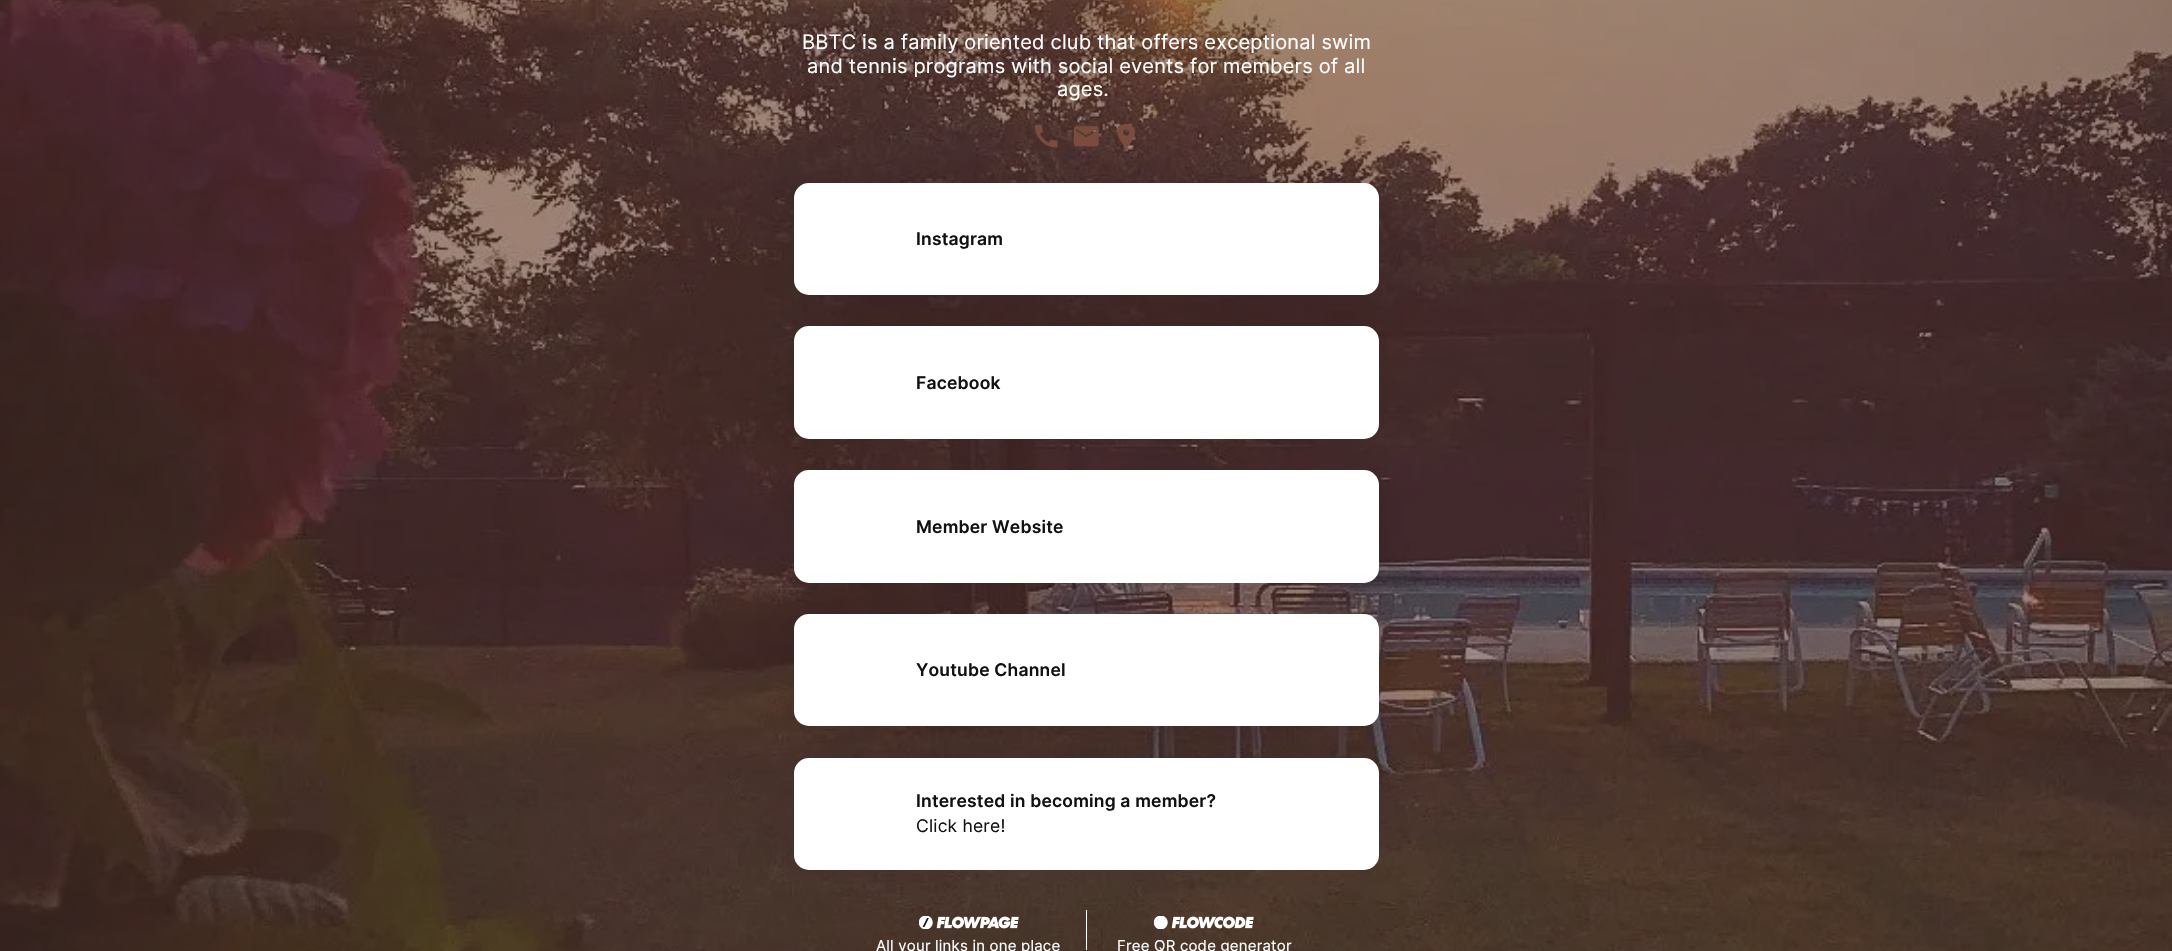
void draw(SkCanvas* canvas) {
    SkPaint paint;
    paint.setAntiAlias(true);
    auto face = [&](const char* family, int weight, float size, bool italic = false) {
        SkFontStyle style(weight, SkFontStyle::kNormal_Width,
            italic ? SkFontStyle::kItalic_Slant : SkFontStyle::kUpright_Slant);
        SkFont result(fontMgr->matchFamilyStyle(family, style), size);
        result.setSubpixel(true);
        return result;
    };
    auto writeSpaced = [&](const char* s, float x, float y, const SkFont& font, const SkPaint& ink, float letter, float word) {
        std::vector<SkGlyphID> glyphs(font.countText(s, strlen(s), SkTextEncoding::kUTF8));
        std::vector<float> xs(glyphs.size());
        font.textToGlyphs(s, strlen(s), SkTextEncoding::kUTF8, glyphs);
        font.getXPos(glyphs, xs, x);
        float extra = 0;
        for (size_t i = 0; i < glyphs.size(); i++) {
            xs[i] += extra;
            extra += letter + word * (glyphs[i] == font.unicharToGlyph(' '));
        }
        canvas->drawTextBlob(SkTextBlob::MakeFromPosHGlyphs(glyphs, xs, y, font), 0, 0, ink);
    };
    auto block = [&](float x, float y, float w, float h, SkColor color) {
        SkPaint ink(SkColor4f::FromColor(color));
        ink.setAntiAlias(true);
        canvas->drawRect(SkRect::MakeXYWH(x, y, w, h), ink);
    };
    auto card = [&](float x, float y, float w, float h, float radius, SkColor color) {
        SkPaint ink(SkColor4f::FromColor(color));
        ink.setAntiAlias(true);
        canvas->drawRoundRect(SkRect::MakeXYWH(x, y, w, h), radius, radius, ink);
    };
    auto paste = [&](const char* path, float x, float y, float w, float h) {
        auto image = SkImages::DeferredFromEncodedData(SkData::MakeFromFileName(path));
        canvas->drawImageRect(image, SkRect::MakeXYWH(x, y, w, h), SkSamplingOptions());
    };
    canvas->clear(SkColorSetRGB(66, 40, 33));
    paste("pic1.png", 0, 0, 2172, 951);
    auto kFont1 = face("Inter", 400, 20);
    paint.setColor(SK_ColorWHITE);
    writeSpaced("BBTC is a family oriented club that offers exceptional swim", 802, 49, kFont1, paint, 0.2f, 0);
    writeSpaced("and tennis programs with social events for members of all", 807, 73, kFont1, paint, 0.2f, 0);
    writeSpaced("ages.", 1057, 96, kFont1, paint, 0.2f, 0);
    paste("pic2.png", 1035, 125, 23, 23);
    paste("pic3.png", 1073, 126, 26, 21);
    paste("pic4.png", 1117, 123, 18, 26);
    paint.setColor(SkColorSetARGB(26, 0, 0, 0));
    paint.setMaskFilter(SkMaskFilter::MakeBlur(kNormal_SkBlurStyle, 19));
    canvas->drawRoundRect(SkRect::MakeXYWH(794, 186, 585, 113), 15, 15, paint);
    paint.setMaskFilter(nullptr);
    card(794, 183, 585, 112, 15, SK_ColorWHITE);
    auto kFont2 = face("Inter", 600, 17.5f);
    paint.setColor(SkColorSetRGB(17, 17, 17));
    writeSpaced("Instagram", 916, 245, kFont2, paint, 0.2f, 0);
    paint.setColor(SkColorSetARGB(26, 0, 0, 0));
    paint.setMaskFilter(SkMaskFilter::MakeBlur(kNormal_SkBlurStyle, 19));
    canvas->drawRoundRect(SkRect::MakeXYWH(794, 330, 585, 113), 15, 15, paint);
    paint.setMaskFilter(nullptr);
    card(794, 326, 585, 113, 15, SK_ColorWHITE);
    paint.setColor(SkColorSetRGB(17, 17, 17));
    writeSpaced("Facebook", 916, 389, kFont2, paint, 0.2f, 0);
    paint.setColor(SkColorSetARGB(26, 0, 0, 0));
    paint.setMaskFilter(SkMaskFilter::MakeBlur(kNormal_SkBlurStyle, 19));
    canvas->drawRoundRect(SkRect::MakeXYWH(794, 474, 585, 112), 15, 15, paint);
    paint.setMaskFilter(nullptr);
    card(794, 470, 585, 113, 15, SK_ColorWHITE);
    paint.setColor(SkColorSetRGB(17, 17, 17));
    writeSpaced("Member Website", 916, 533, kFont2, paint, 0.2f, 0);
    paint.setColor(SkColorSetARGB(26, 0, 0, 0));
    paint.setMaskFilter(SkMaskFilter::MakeBlur(kNormal_SkBlurStyle, 19));
    canvas->drawRoundRect(SkRect::MakeXYWH(794, 618, 585, 112), 15, 15, paint);
    paint.setMaskFilter(nullptr);
    card(794, 614, 585, 112, 15, SK_ColorWHITE);
    paint.setColor(SkColorSetRGB(17, 17, 17));
    writeSpaced("Youtube Channel", 916, 676, kFont2, paint, 0.2f, 0);
    card(794, 758, 585, 112, 15, SK_ColorWHITE);
    writeSpaced("Interested in becoming a member?", 916, 807, kFont2, paint, 0.2f, 0);
    auto kFont3 = face("Inter", 400, 17.5f);
    writeSpaced("Click here!", 916, 832, kFont3, paint, 0.2f, 0);
    paste("pic5.png", 919, 916, 100, 13);
    auto kFont4 = face("Inter", 400, 15);
    paint.setColor(SK_ColorWHITE);
    writeSpaced("All your links in one place", 876, 951, kFont4, paint, 0.2f, 0);
    block(1086, 910, 1, 40, SK_ColorWHITE);
    paste("pic6.png", 1154, 916, 100, 13);
    writeSpaced("Free QR code generator", 1117, 951, kFont4, paint, 0.2f, 0);
}
